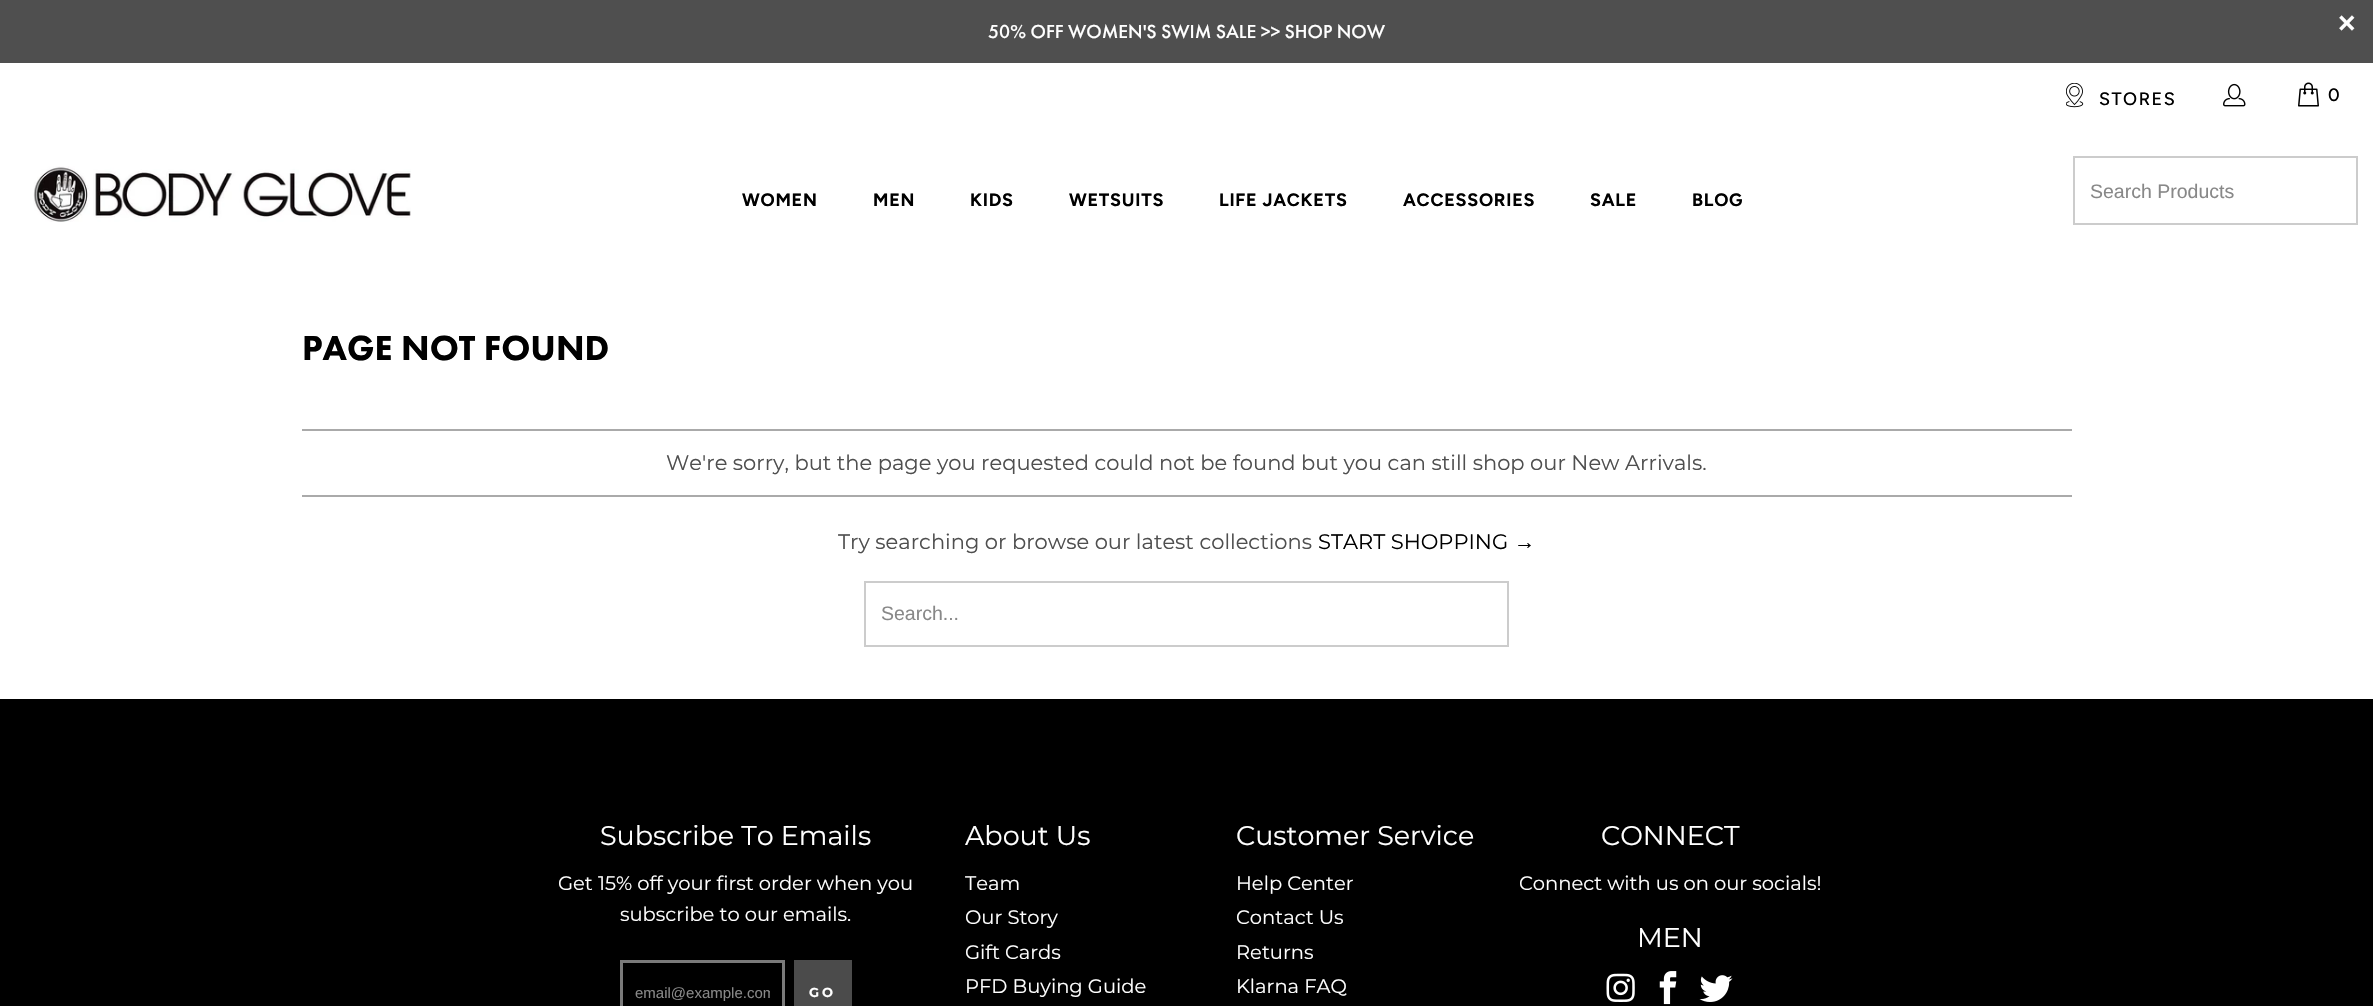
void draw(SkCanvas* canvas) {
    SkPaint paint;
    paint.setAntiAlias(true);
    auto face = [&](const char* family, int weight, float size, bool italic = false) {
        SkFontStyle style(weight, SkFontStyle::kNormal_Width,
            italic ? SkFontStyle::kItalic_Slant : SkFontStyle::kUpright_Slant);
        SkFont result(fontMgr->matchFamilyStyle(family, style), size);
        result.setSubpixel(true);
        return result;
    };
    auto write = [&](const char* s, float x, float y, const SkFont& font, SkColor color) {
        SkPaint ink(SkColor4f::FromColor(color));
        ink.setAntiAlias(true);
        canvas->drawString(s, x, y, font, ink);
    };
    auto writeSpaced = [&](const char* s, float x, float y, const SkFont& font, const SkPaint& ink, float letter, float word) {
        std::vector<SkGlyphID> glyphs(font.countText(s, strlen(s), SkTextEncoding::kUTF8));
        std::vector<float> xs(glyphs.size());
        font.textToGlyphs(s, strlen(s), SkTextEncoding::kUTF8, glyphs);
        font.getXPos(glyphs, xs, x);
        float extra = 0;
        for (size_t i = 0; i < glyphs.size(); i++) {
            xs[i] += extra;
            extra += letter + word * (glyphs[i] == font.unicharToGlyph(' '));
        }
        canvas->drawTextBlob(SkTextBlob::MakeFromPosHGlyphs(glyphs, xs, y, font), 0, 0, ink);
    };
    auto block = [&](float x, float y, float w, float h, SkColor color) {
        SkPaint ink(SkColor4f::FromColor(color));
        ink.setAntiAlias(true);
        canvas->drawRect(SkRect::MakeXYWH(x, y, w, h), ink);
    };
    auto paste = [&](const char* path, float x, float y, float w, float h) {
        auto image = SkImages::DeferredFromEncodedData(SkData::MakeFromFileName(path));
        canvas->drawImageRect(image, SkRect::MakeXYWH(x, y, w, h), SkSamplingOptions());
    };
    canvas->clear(SK_ColorWHITE);
    block(0, 0, 2373, 63, SkColorSetRGB(79, 79, 79));
    auto kFont1 = face("Futura PT", 500, 19.5f);
    write("50% OFF WOMEN'S SWIM SALE >> SHOP NOW", 988, 38, kFont1, SK_ColorWHITE);
    auto kFont2 = face("Liberation Sans", 700, 30);
    write("×", 2338, 33, kFont2, SK_ColorWHITE);
    paste("pic1.png", 2066, 83, 18, 25);
    auto kFont3 = face("Figtree", 500, 18);
    paint.setColor(SK_ColorBLACK);
    writeSpaced("STORES", 2099, 105, kFont3, paint, 1.5f, 0);
    paste("pic2.png", 2223, 83, 23, 24);
    paste("pic3.png", 2298, 82, 21, 25);
    writeSpaced("0", 2328, 101, kFont3, paint, 1.5f, 0);
    paste("pic4.png", 33, 166, 378, 56);
    auto kFont4 = face("Figtree", 700, 18);
    writeSpaced("WOMEN", 742, 206, kFont4, paint, 0.75f, 0);
    writeSpaced("MEN", 873, 206, kFont4, paint, 0.75f, 0);
    writeSpaced("KIDS", 970, 206, kFont4, paint, 0.75f, 0);
    writeSpaced("WETSUITS", 1069, 206, kFont4, paint, 0.75f, 0);
    writeSpaced("LIFE JACKETS", 1219, 206, kFont4, paint, 0.75f, 0);
    writeSpaced("ACCESSORIES", 1403, 206, kFont4, paint, 0.75f, 0);
    writeSpaced("SALE", 1590, 206, kFont4, paint, 0.75f, 0);
    writeSpaced("BLOG", 1692, 206, kFont4, paint, 0.75f, 0);
    paint.setStyle(SkPaint::kStroke_Style);
    paint.setStrokeWidth(2);
    paint.setColor(SkColorSetRGB(204, 204, 204));
    canvas->drawRect(SkRect::MakeXYWH(2074, 157, 283, 67), paint);
    auto kFont5 = face("Liberation Sans", 400, 19.5f);
    write("Search Products", 2090, 198, kFont5, SkColorSetRGB(136, 136, 136));
    auto kFont6 = face("Futura PT", 900, 36);
    write("PAGE NOT FOUND", 302, 360, kFont6, SK_ColorBLACK);
    block(302, 429, 1770, 2, SkColorSetRGB(170, 170, 170));
    block(302, 495, 1770, 2, SkColorSetRGB(170, 170, 170));
    auto kFont7 = face("Montserrat", 400, 21);
    write("We're sorry, but the page you requested could not be found but you can still shop our New Arrivals.", 666, 470, kFont7, SkColorSetRGB(79, 79, 79));
    write("Try searching or browse our latest collections", 838, 549, kFont7, SkColorSetRGB(79, 79, 79));
    write("START SHOPPING", 1318, 549, kFont7, SK_ColorBLACK);
    auto kFont8 = face("Liberation Sans", 400, 21);
    write("→", 1514, 549, kFont8, SK_ColorBLACK);
    canvas->drawRect(SkRect::MakeXYWH(865, 582, 643, 64), paint);
    write("Search...", 881, 620, kFont5, SkColorSetRGB(136, 136, 136));
    block(0, 699, 2373, 307, SK_ColorBLACK);
    auto kFont9 = face("Montserrat", 400, 27);
    write("Subscribe To Emails", 600, 845, kFont9, SK_ColorWHITE);
    auto kFont10 = face("Montserrat", 400, 19.5f);
    write("Get 15% off your first order when you", 558, 890, kFont10, SK_ColorWHITE);
    write("subscribe to our emails.", 620, 921, kFont10, SK_ColorWHITE);
    paint.setStrokeWidth(3);
    paint.setColor(SkColorSetRGB(122, 122, 122));
    canvas->drawRect(SkRect::MakeXYWH(621.5f, 961.5f, 162, 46), paint);
    canvas->save();
    canvas->clipRect(SkRect::MakeXYWH(635, 986, 135, 16));
    auto kFont11 = face("Liberation Sans", 400, 15);
    write("email@example.com", 635, 998, kFont11, SkColorSetRGB(136, 136, 136));
    canvas->restore();
    block(794, 960, 58, 46, SkColorSetRGB(75, 75, 75));
    auto kFont12 = face("Montserrat", 700, 13);
    paint.setStyle(SkPaint::kFill_Style);
    paint.setColor(SK_ColorWHITE);
    writeSpaced("GO", 809, 997, kFont12, paint, 3, 0);
    write("About Us", 965, 845, kFont9, SK_ColorWHITE);
    write("Team", 965, 890, kFont10, SK_ColorWHITE);
    write("Our Story", 965, 924, kFont10, SK_ColorWHITE);
    write("Gift Cards", 965, 959, kFont10, SK_ColorWHITE);
    write("PFD Buying Guide", 965, 993, kFont10, SK_ColorWHITE);
    write("Customer Service", 1236, 845, kFont9, SK_ColorWHITE);
    write("Help Center", 1236, 890, kFont10, SK_ColorWHITE);
    write("Contact Us", 1236, 924, kFont10, SK_ColorWHITE);
    write("Returns", 1236, 959, kFont10, SK_ColorWHITE);
    write("Klarna FAQ", 1236, 993, kFont10, SK_ColorWHITE);
    write("CONNECT", 1601, 845, kFont9, SK_ColorWHITE);
    write("Connect with us on our socials!", 1519, 890, kFont10, SK_ColorWHITE);
    write("MEN", 1637, 947, kFont9, SK_ColorWHITE);
    paste("pic5.png", 1606, 973, 29, 29);
    paste("pic6.png", 1659, 971, 18, 34);
    paste("pic7.png", 1699, 975, 34, 27);
}
